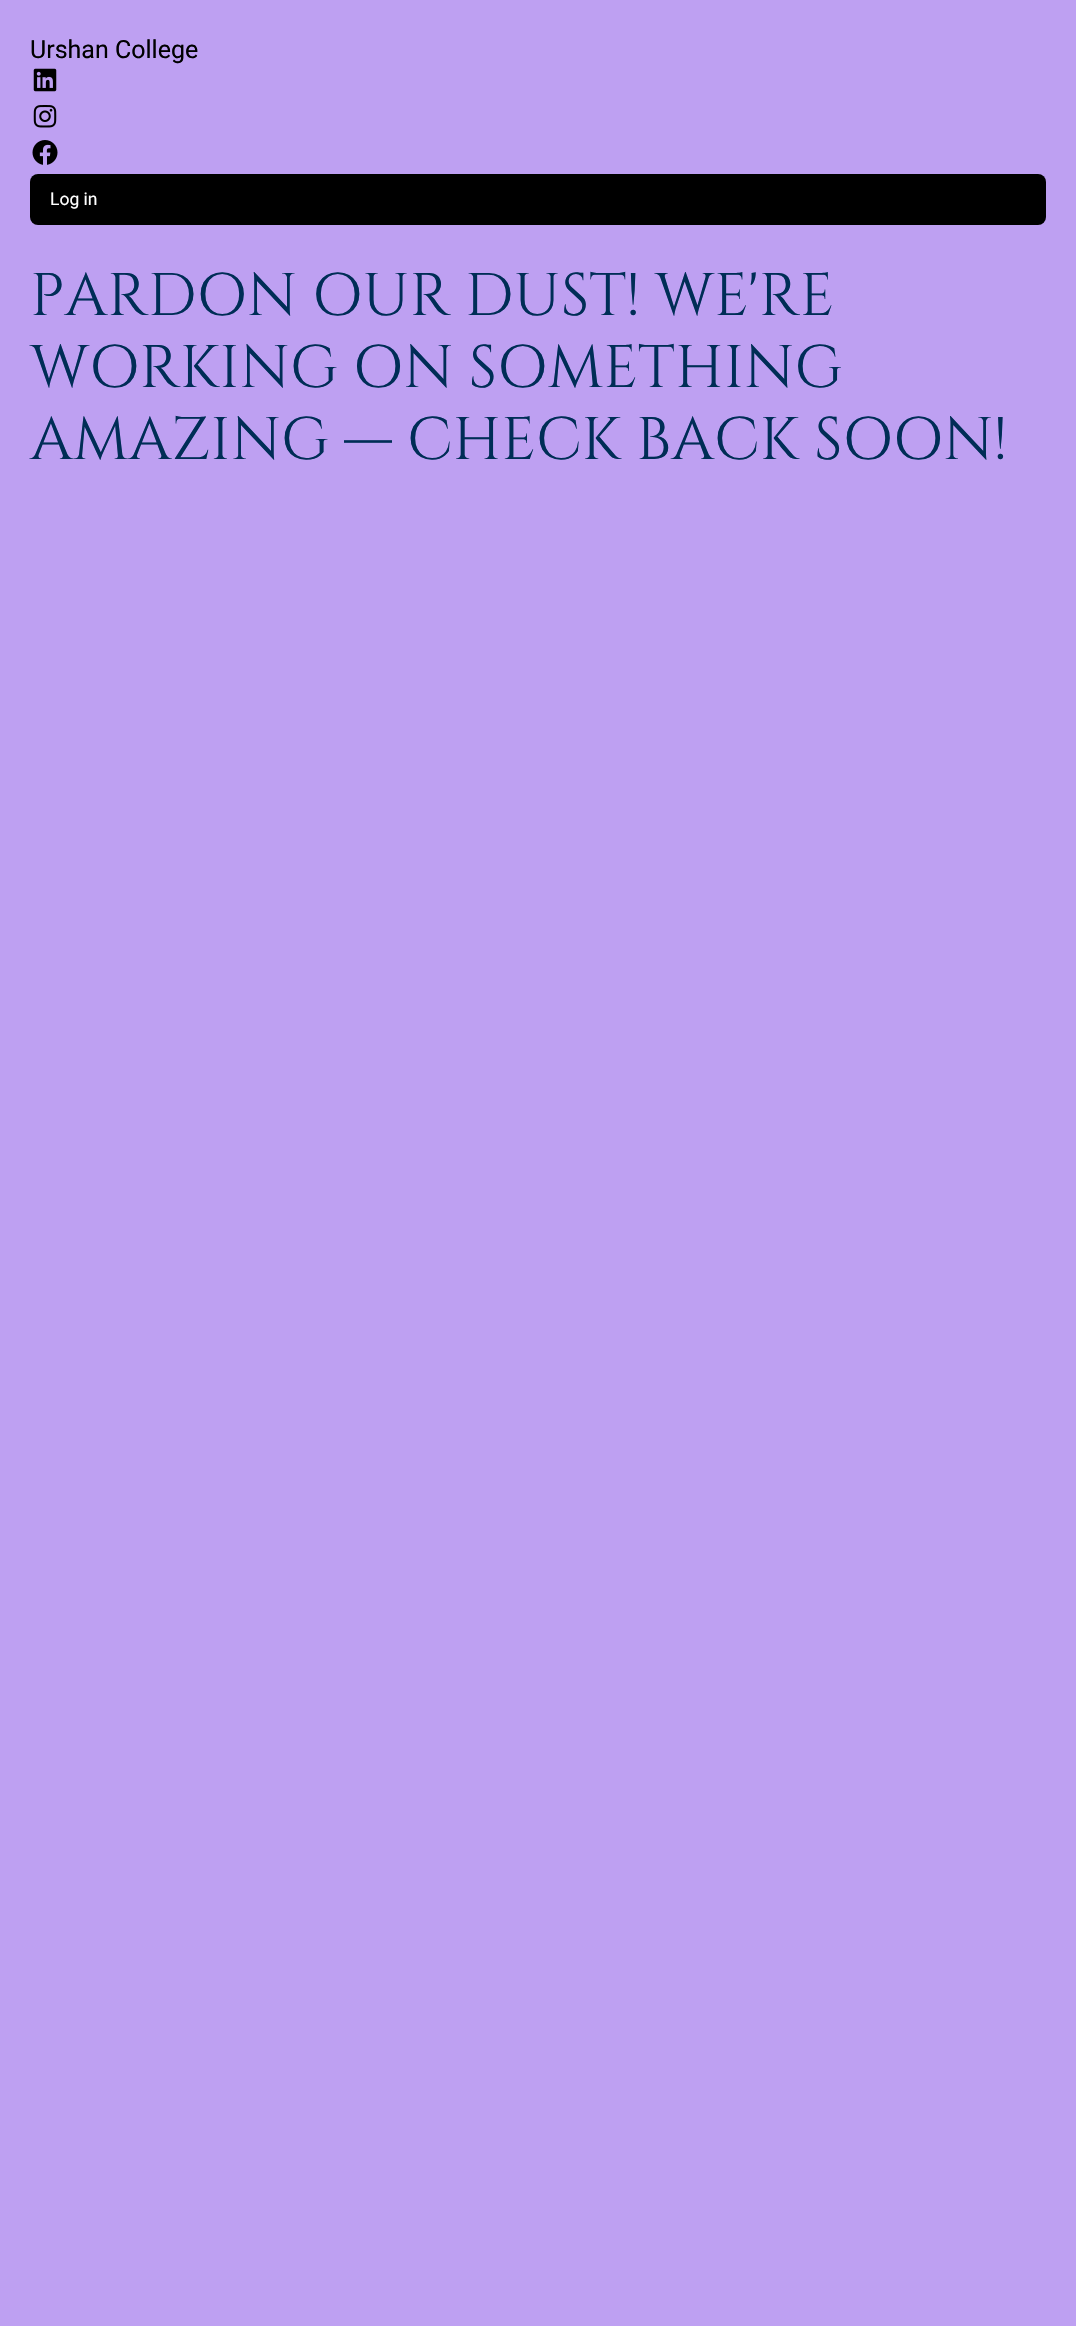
void draw(SkCanvas* canvas) {
    SkPaint paint;
    paint.setAntiAlias(true);
    auto face = [&](const char* family, int weight, float size, bool italic = false) {
        SkFontStyle style(weight, SkFontStyle::kNormal_Width,
            italic ? SkFontStyle::kItalic_Slant : SkFontStyle::kUpright_Slant);
        SkFont result(fontMgr->matchFamilyStyle(family, style), size);
        result.setSubpixel(true);
        return result;
    };
    auto write = [&](const char* s, float x, float y, const SkFont& font, SkColor color) {
        SkPaint ink(SkColor4f::FromColor(color));
        ink.setAntiAlias(true);
        canvas->drawString(s, x, y, font, ink);
    };
    auto card = [&](float x, float y, float w, float h, float radius, SkColor color) {
        SkPaint ink(SkColor4f::FromColor(color));
        ink.setAntiAlias(true);
        canvas->drawRoundRect(SkRect::MakeXYWH(x, y, w, h), radius, radius, ink);
    };
    auto paste = [&](const char* path, float x, float y, float w, float h) {
        auto image = SkImages::DeferredFromEncodedData(SkData::MakeFromFileName(path));
        canvas->drawImageRect(image, SkRect::MakeXYWH(x, y, w, h), SkSamplingOptions());
    };
    canvas->clear(SkColorSetRGB(190, 160, 242));
    auto kFont1 = face("Roboto", 400, 25);
    write("Urshan College", 30, 58, kFont1, SK_ColorBLACK);
    paste("pic1.png", 33, 68, 24, 24);
    paste("pic2.png", 33, 105, 24, 23);
    paste("pic3.png", 32, 140, 26, 25);
    card(30, 174, 1016, 51, 8, SK_ColorBLACK);
    auto kFont2 = face("Roboto", 400, 17.5f);
    write("Log in", 50, 205, kFont2, SK_ColorWHITE);
    auto kFont3 = face("Cinzel", 400, 60);
    write("PARDON OUR DUST! WE'RE", 30, 315, kFont3, SkColorSetRGB(0, 45, 86));
    write("WORKING ON SOMETHING", 30, 387, kFont3, SkColorSetRGB(0, 45, 86));
    write("AMAZING — CHECK BACK SOON!", 30, 459, kFont3, SkColorSetRGB(0, 45, 86));
}
